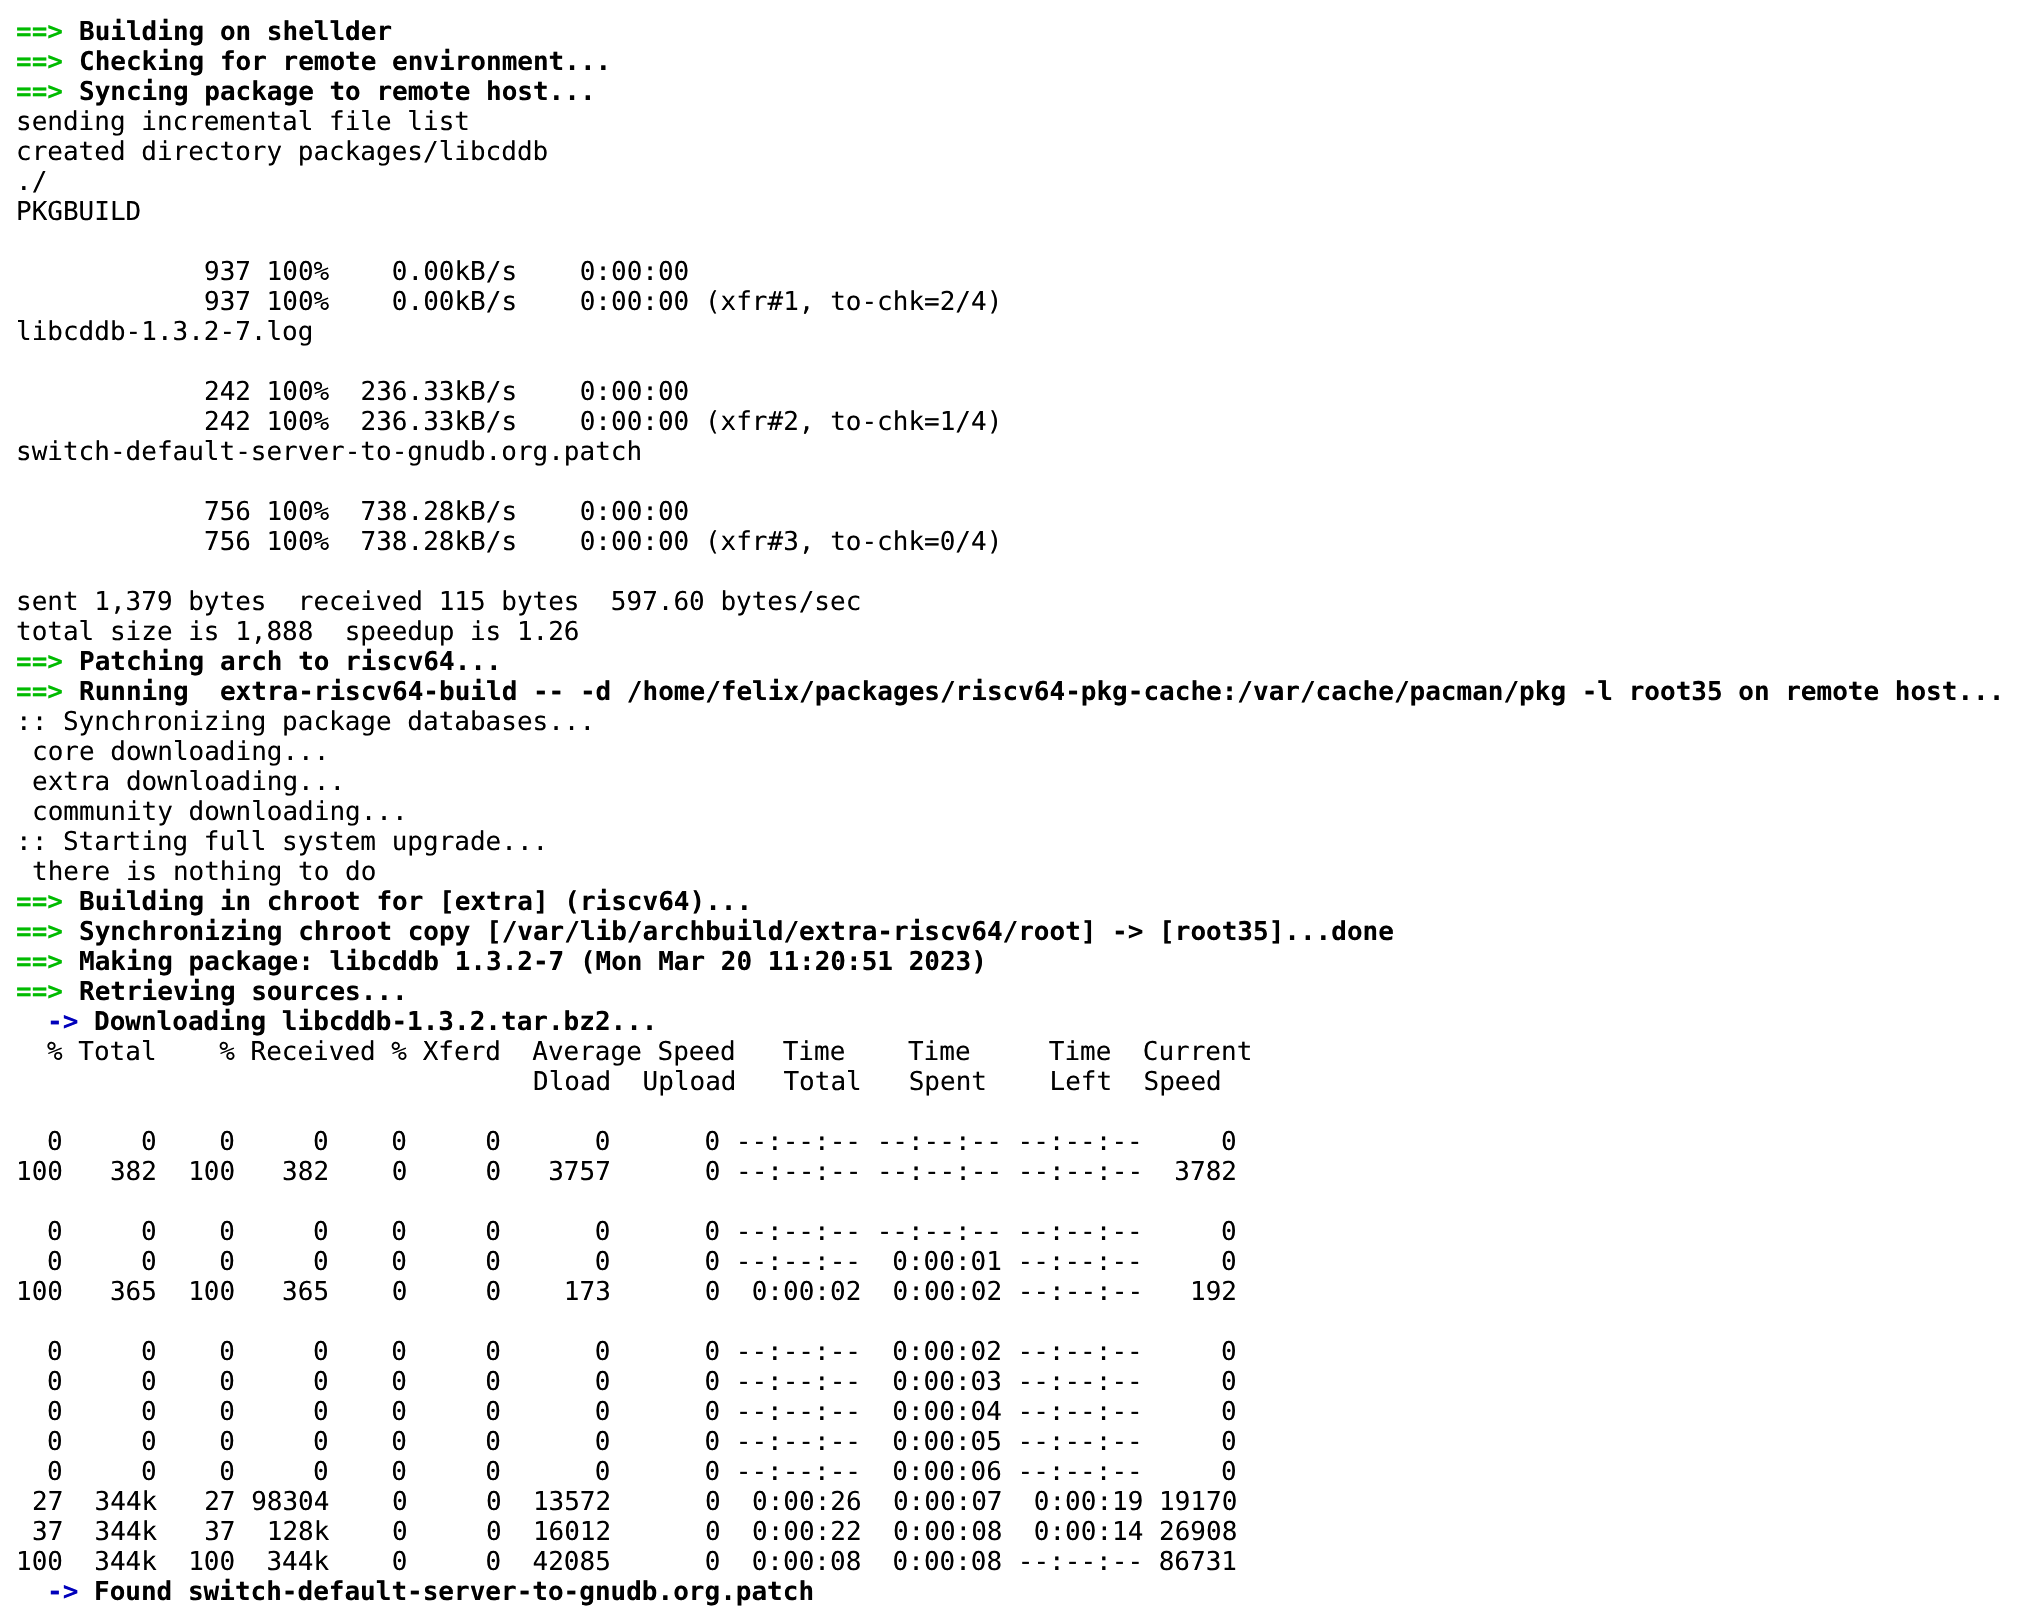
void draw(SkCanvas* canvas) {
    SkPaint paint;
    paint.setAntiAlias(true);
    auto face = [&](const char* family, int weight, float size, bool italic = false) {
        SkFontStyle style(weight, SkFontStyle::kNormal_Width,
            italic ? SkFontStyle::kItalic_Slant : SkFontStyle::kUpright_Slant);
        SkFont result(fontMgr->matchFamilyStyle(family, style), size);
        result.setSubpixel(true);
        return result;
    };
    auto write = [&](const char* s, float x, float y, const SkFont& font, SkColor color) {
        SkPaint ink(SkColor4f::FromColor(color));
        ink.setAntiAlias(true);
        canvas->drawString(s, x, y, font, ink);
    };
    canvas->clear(SK_ColorWHITE);
    auto kFont1 = face("DejaVu Sans Mono", 700, 26);
    write("==>", 16, 40, kFont1, SkColorSetRGB(0, 187, 0));
    write("Building on shellder", 79, 40, kFont1, SK_ColorBLACK);
    write("==>", 16, 70, kFont1, SkColorSetRGB(0, 187, 0));
    write("Checking for remote environment...", 79, 70, kFont1, SK_ColorBLACK);
    write("==>", 16, 100, kFont1, SkColorSetRGB(0, 187, 0));
    write("Syncing package to remote host...", 79, 100, kFont1, SK_ColorBLACK);
    auto kFont2 = face("DejaVu Sans Mono", 400, 26);
    write("sending incremental file list", 16, 130, kFont2, SK_ColorBLACK);
    write("created directory packages/libcddb", 16, 160, kFont2, SK_ColorBLACK);
    write("./", 16, 190, kFont2, SK_ColorBLACK);
    write("PKGBUILD", 16, 220, kFont2, SK_ColorBLACK);
    write("937 100%    0.00kB/s    0:00:00", 204, 280, kFont2, SK_ColorBLACK);
    write("937 100%    0.00kB/s    0:00:00 (xfr#1, to-chk=2/4)", 204, 310, kFont2, SK_ColorBLACK);
    write("libcddb-1.3.2-7.log", 16, 340, kFont2, SK_ColorBLACK);
    write("242 100%  236.33kB/s    0:00:00", 204, 400, kFont2, SK_ColorBLACK);
    write("242 100%  236.33kB/s    0:00:00 (xfr#2, to-chk=1/4)", 204, 430, kFont2, SK_ColorBLACK);
    write("switch-default-server-to-gnudb.org.patch", 16, 460, kFont2, SK_ColorBLACK);
    write("756 100%  738.28kB/s    0:00:00", 204, 520, kFont2, SK_ColorBLACK);
    write("756 100%  738.28kB/s    0:00:00 (xfr#3, to-chk=0/4)", 204, 550, kFont2, SK_ColorBLACK);
    write("sent 1,379 bytes  received 115 bytes  597.60 bytes/sec", 16, 610, kFont2, SK_ColorBLACK);
    write("total size is 1,888  speedup is 1.26", 16, 640, kFont2, SK_ColorBLACK);
    write("==>", 16, 670, kFont1, SkColorSetRGB(0, 187, 0));
    write("Patching arch to riscv64...", 79, 670, kFont1, SK_ColorBLACK);
    write("==>", 16, 700, kFont1, SkColorSetRGB(0, 187, 0));
    write("Running  extra-riscv64-build -- -d /home/felix/packages/riscv64-pkg-cache:/var/cache/pacman/pkg -l root35 on remote host...", 79, 700, kFont1, SK_ColorBLACK);
    write(":: Synchronizing package databases...", 16, 730, kFont2, SK_ColorBLACK);
    write("core downloading...", 32, 760, kFont2, SK_ColorBLACK);
    write("extra downloading...", 32, 790, kFont2, SK_ColorBLACK);
    write("community downloading...", 32, 820, kFont2, SK_ColorBLACK);
    write(":: Starting full system upgrade...", 16, 850, kFont2, SK_ColorBLACK);
    write("there is nothing to do", 32, 880, kFont2, SK_ColorBLACK);
    write("==>", 16, 910, kFont1, SkColorSetRGB(0, 187, 0));
    write("Building in chroot for [extra] (riscv64)...", 79, 910, kFont1, SK_ColorBLACK);
    write("==>", 16, 940, kFont1, SkColorSetRGB(0, 187, 0));
    write("Synchronizing chroot copy [/var/lib/archbuild/extra-riscv64/root] -> [root35]...done", 79, 940, kFont1, SK_ColorBLACK);
    write("==>", 16, 970, kFont1, SkColorSetRGB(0, 187, 0));
    write("Making package: libcddb 1.3.2-7 (Mon Mar 20 11:20:51 2023)", 79, 970, kFont1, SK_ColorBLACK);
    write("==>", 16, 1000, kFont1, SkColorSetRGB(0, 187, 0));
    write("Retrieving sources...", 79, 1000, kFont1, SK_ColorBLACK);
    write("->", 47, 1030, kFont1, SkColorSetRGB(0, 0, 187));
    write("Downloading libcddb-1.3.2.tar.bz2...", 94, 1030, kFont1, SK_ColorBLACK);
    write("% Total    % Received % Xferd  Average Speed   Time    Time     Time  Current", 47, 1060, kFont2, SK_ColorBLACK);
    write("Dload  Upload   Total   Spent    Left  Speed", 533, 1090, kFont2, SK_ColorBLACK);
    write("0     0    0     0    0     0      0      0 --:--:-- --:--:-- --:--:--     0", 47, 1150, kFont2, SK_ColorBLACK);
    write("100   382  100   382    0     0   3757      0 --:--:-- --:--:-- --:--:--  3782", 16, 1180, kFont2, SK_ColorBLACK);
    write("0     0    0     0    0     0      0      0 --:--:-- --:--:-- --:--:--     0", 47, 1240, kFont2, SK_ColorBLACK);
    write("0     0    0     0    0     0      0      0 --:--:--  0:00:01 --:--:--     0", 47, 1270, kFont2, SK_ColorBLACK);
    write("100   365  100   365    0     0    173      0  0:00:02  0:00:02 --:--:--   192", 16, 1300, kFont2, SK_ColorBLACK);
    write("0     0    0     0    0     0      0      0 --:--:--  0:00:02 --:--:--     0", 47, 1360, kFont2, SK_ColorBLACK);
    write("0     0    0     0    0     0      0      0 --:--:--  0:00:03 --:--:--     0", 47, 1390, kFont2, SK_ColorBLACK);
    write("0     0    0     0    0     0      0      0 --:--:--  0:00:04 --:--:--     0", 47, 1420, kFont2, SK_ColorBLACK);
    write("0     0    0     0    0     0      0      0 --:--:--  0:00:05 --:--:--     0", 47, 1450, kFont2, SK_ColorBLACK);
    write("0     0    0     0    0     0      0      0 --:--:--  0:00:06 --:--:--     0", 47, 1480, kFont2, SK_ColorBLACK);
    write("27  344k   27 98304    0     0  13572      0  0:00:26  0:00:07  0:00:19 19170", 32, 1510, kFont2, SK_ColorBLACK);
    write("37  344k   37  128k    0     0  16012      0  0:00:22  0:00:08  0:00:14 26908", 32, 1540, kFont2, SK_ColorBLACK);
    write("100  344k  100  344k    0     0  42085      0  0:00:08  0:00:08 --:--:-- 86731", 16, 1570, kFont2, SK_ColorBLACK);
    write("->", 47, 1600, kFont1, SkColorSetRGB(0, 0, 187));
    write("Found switch-default-server-to-gnudb.org.patch", 94, 1600, kFont1, SK_ColorBLACK);
}
